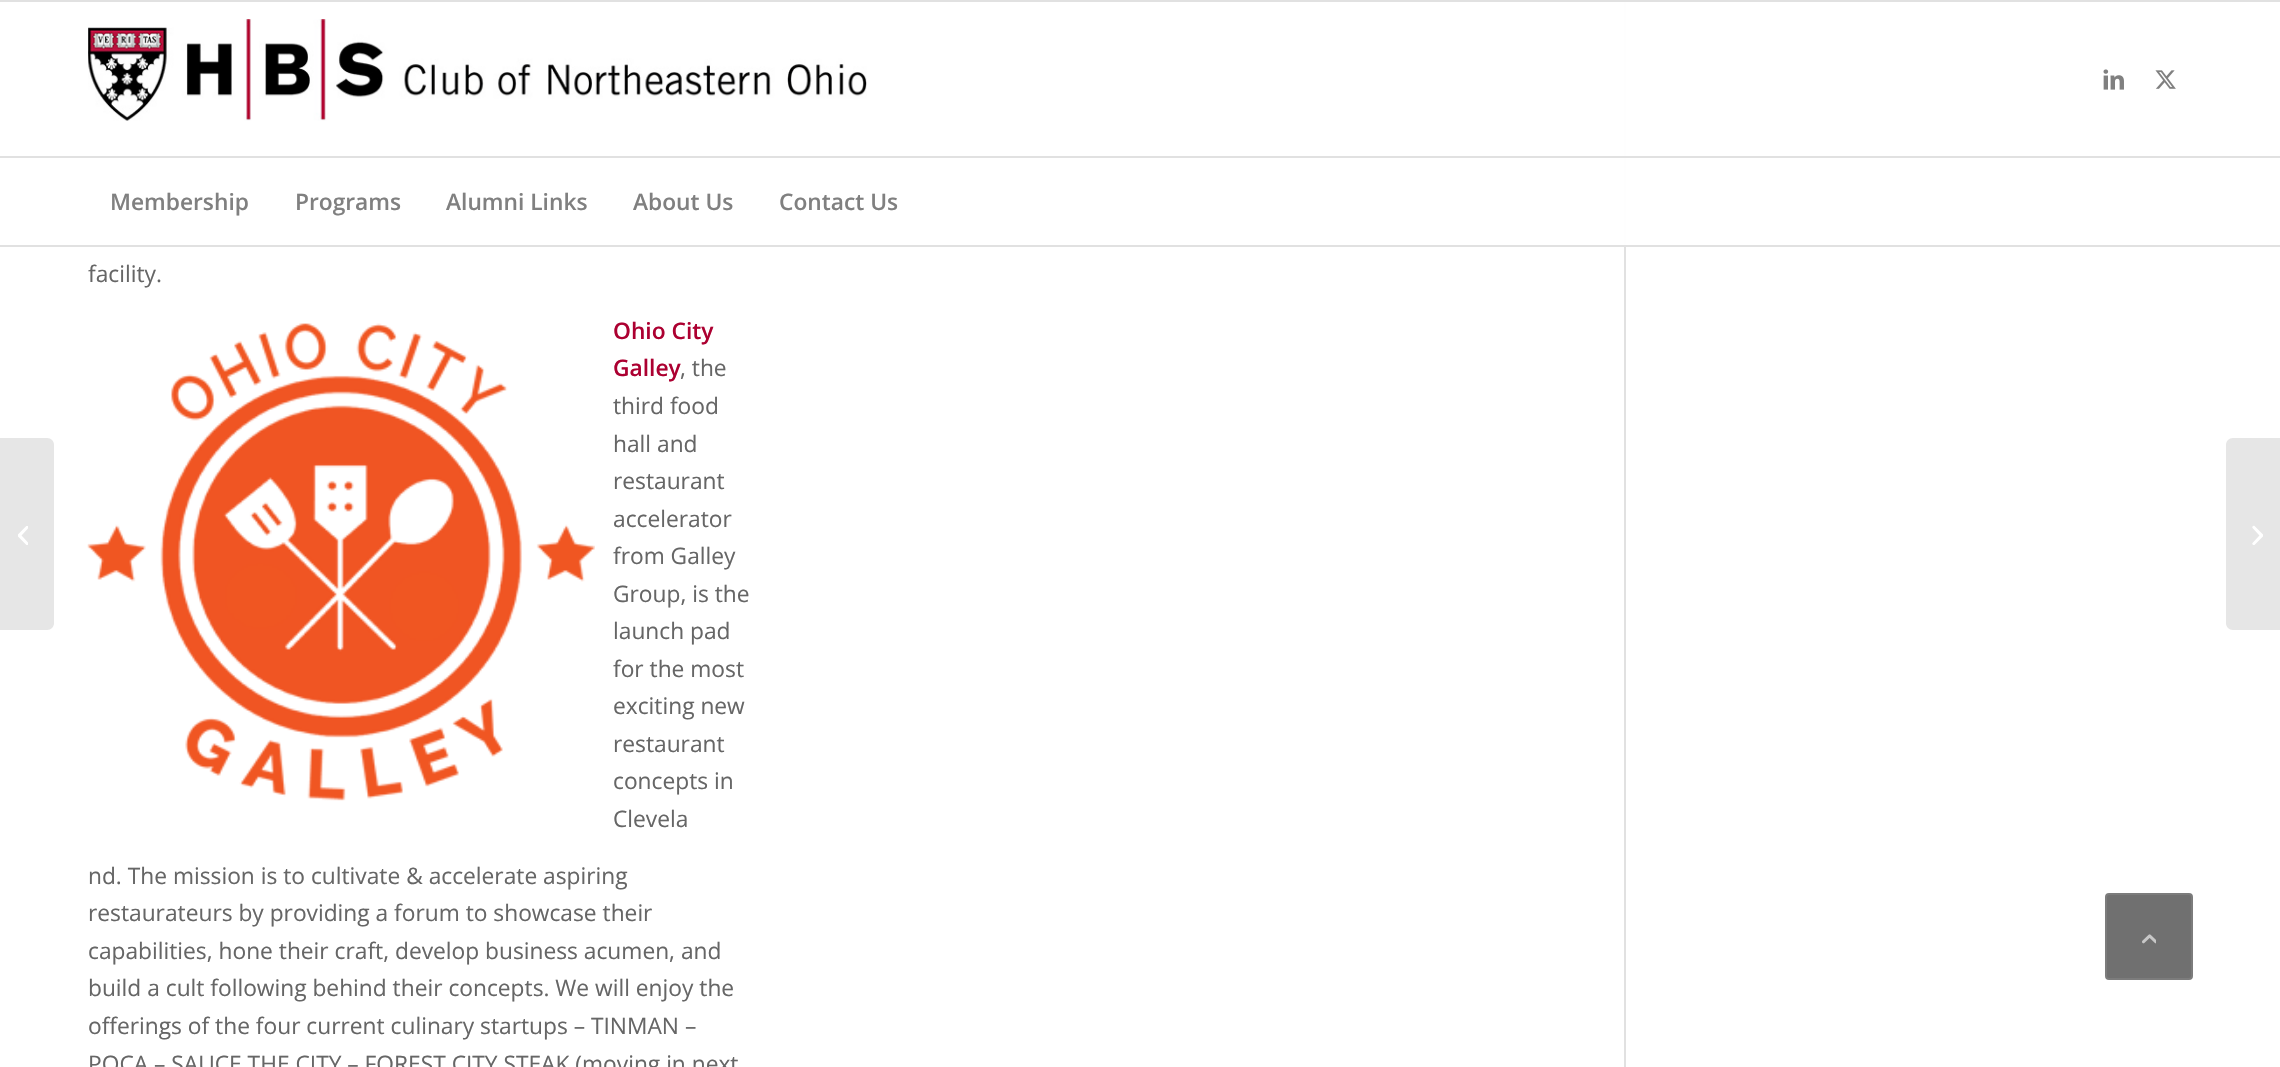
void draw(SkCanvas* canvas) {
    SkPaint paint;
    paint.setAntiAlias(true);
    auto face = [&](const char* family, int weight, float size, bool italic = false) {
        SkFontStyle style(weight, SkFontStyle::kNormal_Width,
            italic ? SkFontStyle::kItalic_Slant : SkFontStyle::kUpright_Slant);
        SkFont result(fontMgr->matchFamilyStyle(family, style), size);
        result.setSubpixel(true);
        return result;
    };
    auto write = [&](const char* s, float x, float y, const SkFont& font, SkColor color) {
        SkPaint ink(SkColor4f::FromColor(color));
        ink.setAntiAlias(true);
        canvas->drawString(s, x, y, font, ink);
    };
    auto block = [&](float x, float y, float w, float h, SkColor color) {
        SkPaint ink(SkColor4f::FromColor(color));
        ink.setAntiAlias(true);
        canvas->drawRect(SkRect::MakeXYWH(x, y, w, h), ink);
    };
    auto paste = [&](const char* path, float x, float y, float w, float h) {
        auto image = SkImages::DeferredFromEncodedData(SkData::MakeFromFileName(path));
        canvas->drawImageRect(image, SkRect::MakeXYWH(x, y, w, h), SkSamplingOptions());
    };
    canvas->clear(SK_ColorWHITE);
    block(1624, 0, 2, 1067, SkColorSetRGB(225, 225, 225));
    block(0, 0, 2280, 2, SkColorSetRGB(225, 225, 225));
    block(0, 245, 2280, 2, SkColorSetRGB(225, 225, 225));
    paste("pic1.png", 88, 19, 779, 102);
    paste("pic2.png", 2103, 69, 21, 21);
    paste("pic3.png", 2155, 70, 21, 19);
    block(1624, 2, 2, 243, SkColorSetARGB(242, 255, 255, 255));
    block(0, 156, 2280, 2, SkColorSetRGB(225, 225, 225));
    auto kFont1 = face("Open Sans", 600, 22.75f);
    write("Membership", 110, 210, kFont1, SkColorSetRGB(128, 128, 128));
    write("Programs", 295, 210, kFont1, SkColorSetRGB(128, 128, 128));
    write("Alumni Links", 446, 210, kFont1, SkColorSetRGB(128, 128, 128));
    write("About Us", 633, 210, kFont1, SkColorSetRGB(128, 128, 128));
    write("Contact Us", 779, 210, kFont1, SkColorSetRGB(128, 128, 128));
    paint.setColor(SkColorSetRGB(230, 230, 230));
    canvas->drawPath(SkPathBuilder().moveTo(0, 438).lineTo(47, 438).cubicTo(51, 438, 54, 441, 54, 445).lineTo(54, 623).cubicTo(54, 627, 51, 630, 47, 630).lineTo(0, 630).close().detach(), paint);
    paste("pic4.png", 18, 526, 10, 19);
    auto kFont2 = face("Open Sans", 400, 22.75f);
    write("facility.", 88, 282, kFont2, SkColorSetRGB(102, 102, 102));
    paste("pic5.png", 87, 323, 508, 478);
    write("Ohio City", 613, 339, kFont1, SkColorSetRGB(172, 0, 49));
    write("Galley", 613, 376, kFont1, SkColorSetRGB(172, 0, 49));
    write(", the", 680, 376, kFont2, SkColorSetRGB(102, 102, 102));
    write("third food", 613, 414, kFont2, SkColorSetRGB(102, 102, 102));
    write("hall and", 613, 452, kFont2, SkColorSetRGB(102, 102, 102));
    write("restaurant", 613, 489, kFont2, SkColorSetRGB(102, 102, 102));
    write("accelerator", 613, 527, kFont2, SkColorSetRGB(102, 102, 102));
    write("from Galley", 613, 564, kFont2, SkColorSetRGB(102, 102, 102));
    write("Group, is the", 613, 602, kFont2, SkColorSetRGB(102, 102, 102));
    write("launch pad", 613, 639, kFont2, SkColorSetRGB(102, 102, 102));
    write("for the most", 613, 677, kFont2, SkColorSetRGB(102, 102, 102));
    write("exciting new", 613, 714, kFont2, SkColorSetRGB(102, 102, 102));
    write("restaurant", 613, 752, kFont2, SkColorSetRGB(102, 102, 102));
    write("concepts in", 613, 789, kFont2, SkColorSetRGB(102, 102, 102));
    write("Clevela", 613, 827, kFont2, SkColorSetRGB(102, 102, 102));
    write("nd. The mission is to cultivate & accelerate aspiring", 88, 884, kFont2, SkColorSetRGB(102, 102, 102));
    write("restaurateurs by providing a forum to showcase their", 88, 921, kFont2, SkColorSetRGB(102, 102, 102));
    write("capabilities, hone their craft, develop business acumen, and", 88, 959, kFont2, SkColorSetRGB(102, 102, 102));
    write("build a cult following behind their concepts. We will enjoy the", 88, 996, kFont2, SkColorSetRGB(102, 102, 102));
    write("offerings of the four current culinary startups – TINMAN –", 88, 1034, kFont2, SkColorSetRGB(102, 102, 102));
    write("POCA – SAUCE THE CITY – FOREST CITY STEAK (moving in next", 88, 1072, kFont2, SkColorSetRGB(102, 102, 102));
    canvas->drawPath(SkPathBuilder().moveTo(2233, 438).lineTo(2280, 438).lineTo(2280, 630).lineTo(2233, 630).cubicTo(2229, 630, 2226, 627, 2226, 623).lineTo(2226, 445).cubicTo(2226, 441, 2229, 438, 2233, 438).close().detach(), paint);
    paste("pic6.png", 2252, 525, 11, 20);
    paint.setColor(SkColorSetRGB(112, 112, 112));
    canvas->drawRoundRect(SkRect::MakeXYWH(2106, 894, 86, 85), 3, 3, paint);
    paint.setStyle(SkPaint::kStroke_Style);
    paint.setStrokeWidth(2);
    paint.setColor(SkColorSetRGB(124, 124, 124));
    canvas->drawRoundRect(SkRect::MakeXYWH(2106, 894, 86, 85), 3, 3, paint);
    paste("pic7.png", 2142, 934, 14, 10);
}
